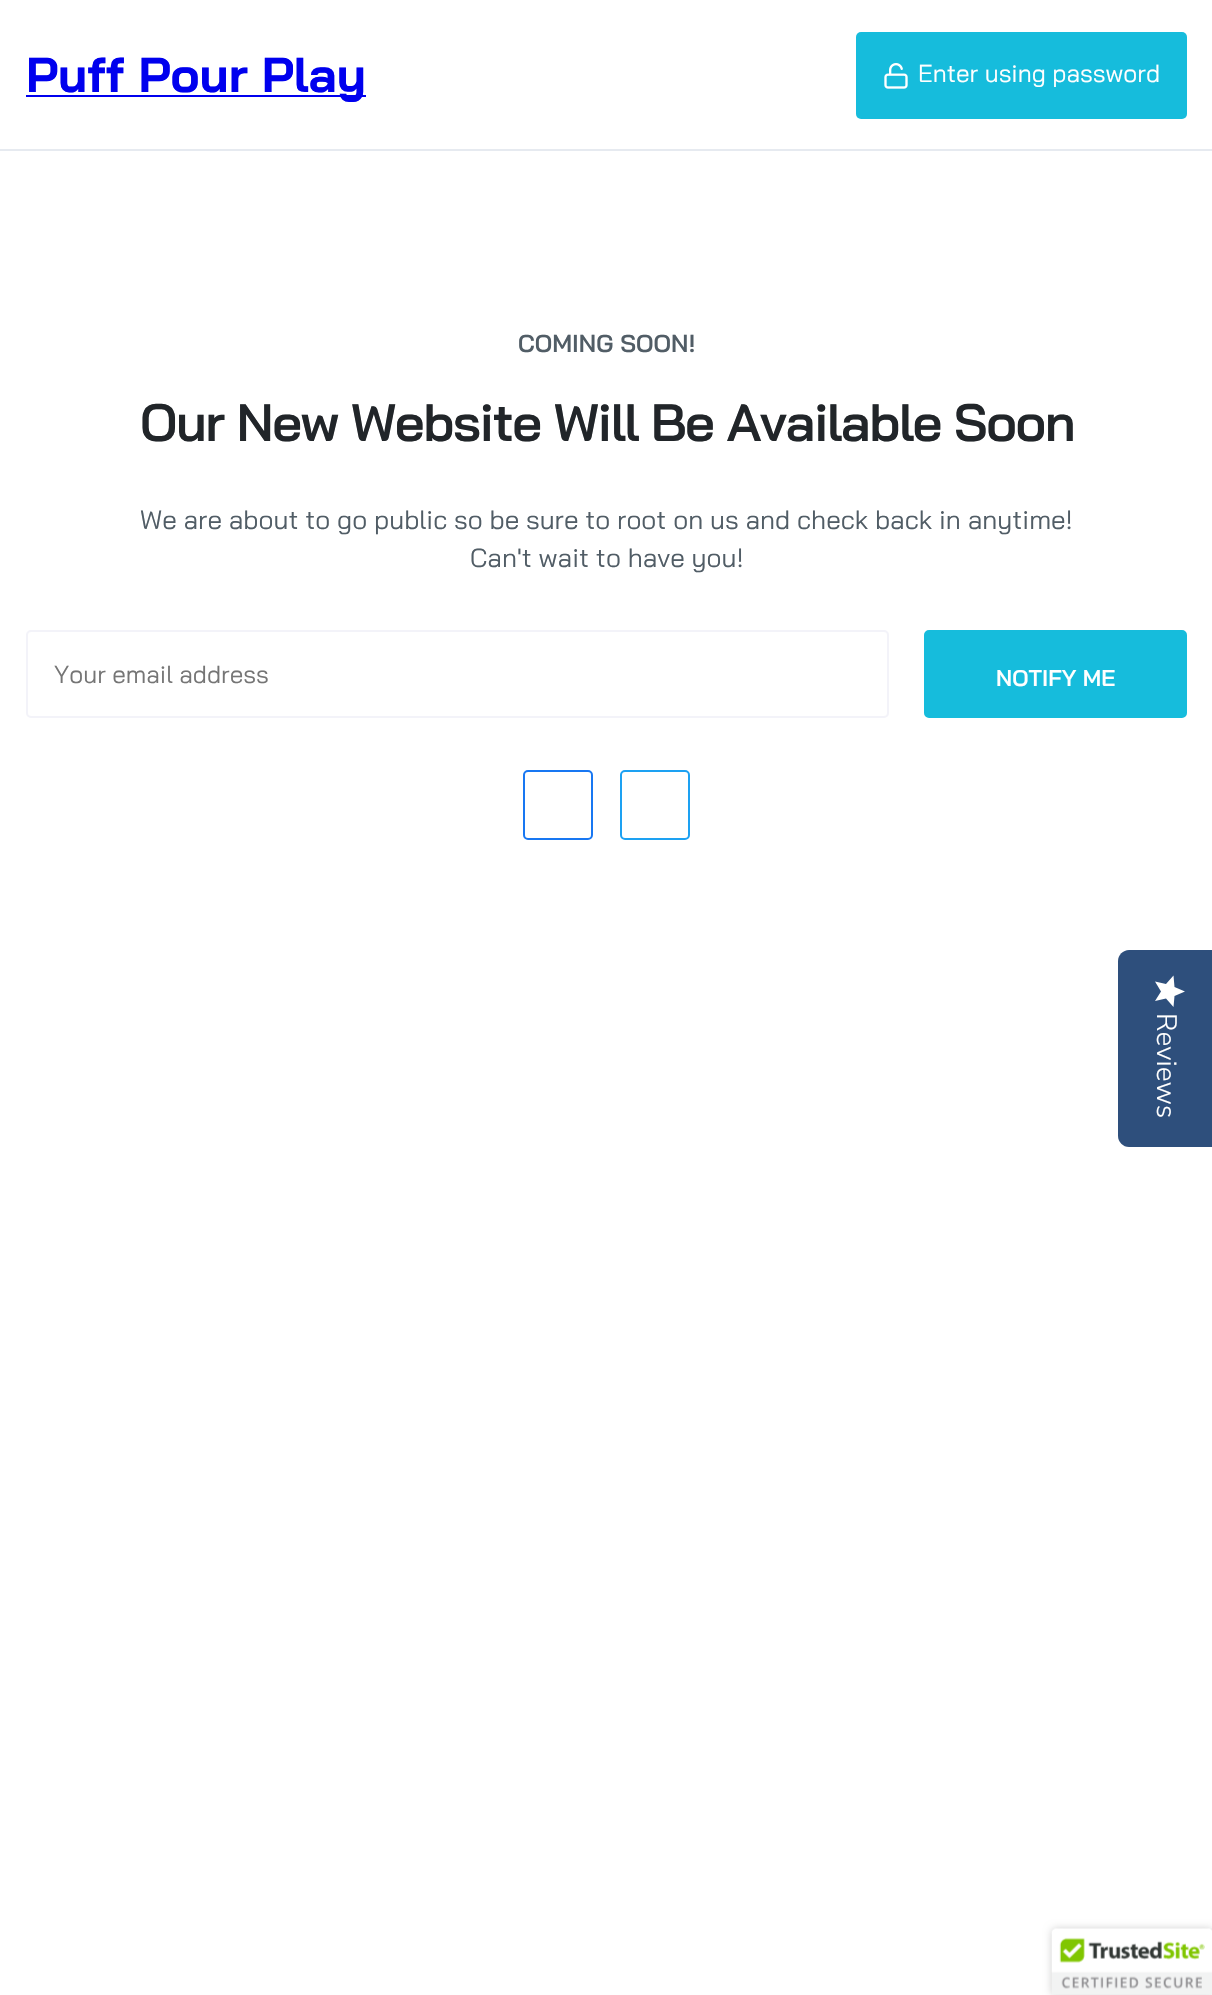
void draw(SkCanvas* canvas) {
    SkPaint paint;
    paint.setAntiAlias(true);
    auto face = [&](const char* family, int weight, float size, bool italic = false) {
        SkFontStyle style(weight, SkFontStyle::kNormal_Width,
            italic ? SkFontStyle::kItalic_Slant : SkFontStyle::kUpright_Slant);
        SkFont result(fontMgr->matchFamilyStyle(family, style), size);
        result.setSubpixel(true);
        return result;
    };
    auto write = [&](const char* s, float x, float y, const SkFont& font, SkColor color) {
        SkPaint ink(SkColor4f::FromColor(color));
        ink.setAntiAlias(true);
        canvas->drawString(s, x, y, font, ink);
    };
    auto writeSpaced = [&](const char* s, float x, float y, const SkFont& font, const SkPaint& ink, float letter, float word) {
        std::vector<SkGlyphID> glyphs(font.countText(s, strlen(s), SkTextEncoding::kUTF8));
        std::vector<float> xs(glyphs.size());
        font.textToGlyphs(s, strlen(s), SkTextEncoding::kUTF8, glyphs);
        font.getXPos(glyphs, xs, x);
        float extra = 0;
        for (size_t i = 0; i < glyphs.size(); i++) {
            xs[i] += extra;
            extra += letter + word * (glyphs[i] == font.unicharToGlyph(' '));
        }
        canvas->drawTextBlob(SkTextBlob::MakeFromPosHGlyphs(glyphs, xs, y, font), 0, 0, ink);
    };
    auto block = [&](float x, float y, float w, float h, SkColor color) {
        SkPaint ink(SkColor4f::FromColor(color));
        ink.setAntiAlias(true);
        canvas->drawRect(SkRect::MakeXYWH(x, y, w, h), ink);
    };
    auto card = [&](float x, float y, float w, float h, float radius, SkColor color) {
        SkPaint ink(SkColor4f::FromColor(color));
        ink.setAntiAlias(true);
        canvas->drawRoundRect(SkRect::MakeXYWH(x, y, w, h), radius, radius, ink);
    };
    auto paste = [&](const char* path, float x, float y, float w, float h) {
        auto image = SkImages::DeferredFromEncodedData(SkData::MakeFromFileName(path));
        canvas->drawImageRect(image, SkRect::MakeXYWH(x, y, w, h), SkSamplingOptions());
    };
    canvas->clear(SK_ColorWHITE);
    block(0, 149, 1212, 2, SkColorSetRGB(230, 234, 240));
    block(26, 95, 340, 2, SkColorSetRGB(0, 0, 238));
    auto kFont1 = face("Bai Jamjuree", 700, 49);
    write("Puff Pour Play", 26, 92, kFont1, SkColorSetRGB(0, 0, 238));
    card(856, 32, 331, 87, 5, SkColorSetRGB(22, 188, 220));
    paste("pic1.png", 884, 63, 24, 26);
    auto kFont2 = face("Bai Jamjuree", 400, 24.5f);
    write("Enter using password", 918, 82, kFont2, SK_ColorWHITE);
    auto kFont3 = face("Bai Jamjuree", 600, 24.5f);
    write("COMING SOON!", 518, 352, kFont3, SkColorSetRGB(81, 93, 102));
    auto kFont4 = face("Bai Jamjuree", 600, 52.5f);
    paint.setColor(SkColorSetRGB(33, 37, 41));
    writeSpaced("Our New Website Will Be Available Soon", 140, 441, kFont4, paint, -1.55f, 0);
    auto kFont5 = face("Bai Jamjuree", 400, 26.25f);
    write("We are about to go public so be sure to root on us and check back in anytime!", 140, 529, kFont5, SkColorSetRGB(81, 93, 102));
    write("Can't wait to have you!", 470, 567, kFont5, SkColorSetRGB(81, 93, 102));
    paint.setStyle(SkPaint::kStroke_Style);
    paint.setStrokeWidth(2);
    paint.setColor(SkColorSetRGB(243, 243, 249));
    canvas->drawRoundRect(SkRect::MakeXYWH(27, 631, 861, 86), 4, 4, paint);
    write("Your email address", 54, 683, kFont2, SkColorSetRGB(117, 117, 117));
    paint.setStyle(SkPaint::kFill_Style);
    paint.setColor(SkColorSetRGB(22, 188, 220));
    canvas->drawRoundRect(SkRect::MakeXYWH(926, 632, 259, 84), 3, 3, paint);
    paint.setStyle(SkPaint::kStroke_Style);
    paint.setStrokeWidth(4);
    canvas->drawRoundRect(SkRect::MakeXYWH(926, 632, 259, 84), 3, 3, paint);
    auto kFont6 = face("Bai Jamjuree", 600, 22.75f);
    write("NOTIFY ME", 996, 686, kFont6, SK_ColorWHITE);
    paint.setStrokeWidth(2);
    paint.setColor(SkColorSetRGB(24, 119, 242));
    canvas->drawRoundRect(SkRect::MakeXYWH(524, 771, 68, 68), 4, 4, paint);
    paint.setColor(SkColorSetRGB(29, 161, 242));
    canvas->drawRoundRect(SkRect::MakeXYWH(621, 771, 68, 68), 4, 4, paint);
    paint.setStyle(SkPaint::kFill_Style);
    paint.setColor(SkColorSetRGB(46, 79, 124));
    canvas->drawPath(SkPathBuilder().moveTo(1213, 950).lineTo(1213, 1147).lineTo(1129, 1147).cubicTo(1123, 1147, 1118, 1142, 1118, 1136).lineTo(1118, 961).cubicTo(1118, 955, 1123, 950, 1129, 950).close().detach(), paint);
    {
        const SkColor colors[] = {SK_ColorWHITE, SkColorSetRGB(234, 234, 234)};
        const float stops[] = {1, 1};
        const SkPoint ends[] = {{1185, 976}, {1185, 1007}};
        paint.setShader(SkGradientShader::MakeLinear(ends, colors, stops, 2, SkTileMode::kClamp));
        paint.setAlpha(255);
    }
    canvas->drawPath(SkPathBuilder().moveTo(1161, 991.5f).lineTo(1155, 1001).lineTo(1166, 998.5f).lineTo(1173.5f, 1007).lineTo(1174.5f, 996).lineTo(1185, 991.5f).lineTo(1174.5f, 987).lineTo(1173.5f, 975.5f).lineTo(1166, 984).lineTo(1155, 981.5f).close().detach(), paint);
    auto kFont7 = face("Nunito Sans", 300, 28);
    canvas->save();
    canvas->rotate(90, 1157, 1013);
    write("Reviews", 1157, 1013, kFont7, SK_ColorWHITE);
    canvas->restore();
    paint.setShader(nullptr);
    paint.setColor(SkColorSetARGB(51, 0, 0, 0));
    paint.setMaskFilter(SkMaskFilter::MakeBlur(kNormal_SkBlurStyle, 4.5f));
    canvas->drawRoundRect(SkRect::MakeXYWH(1052, 1929, 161, 66), 4, 4, paint);
    paint.setMaskFilter(nullptr);
    paste("pic2.png", 1051, 1928, 161, 67);
}
